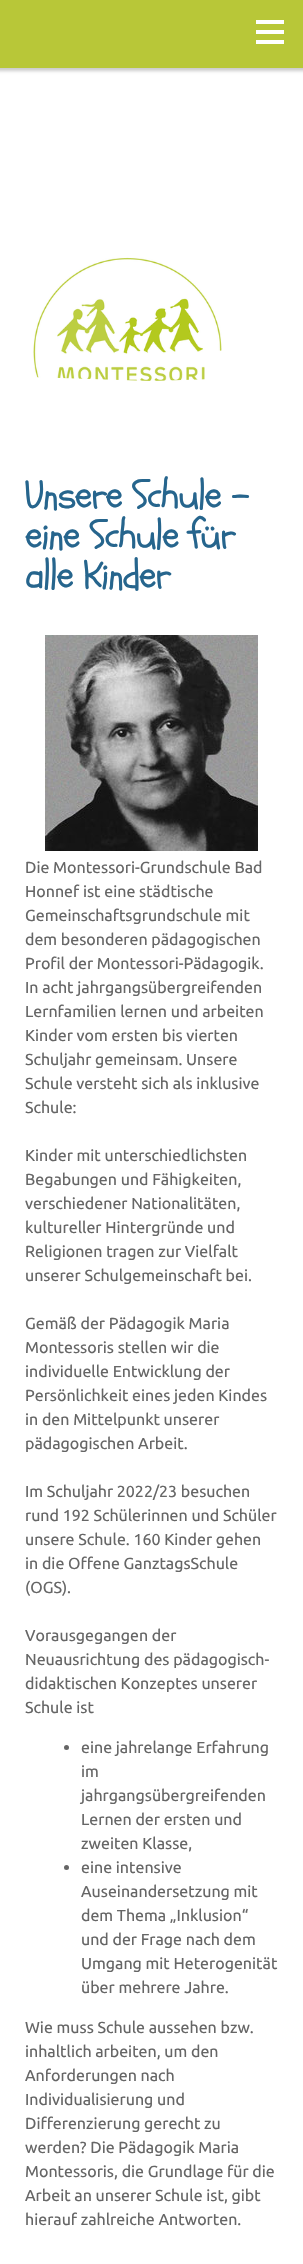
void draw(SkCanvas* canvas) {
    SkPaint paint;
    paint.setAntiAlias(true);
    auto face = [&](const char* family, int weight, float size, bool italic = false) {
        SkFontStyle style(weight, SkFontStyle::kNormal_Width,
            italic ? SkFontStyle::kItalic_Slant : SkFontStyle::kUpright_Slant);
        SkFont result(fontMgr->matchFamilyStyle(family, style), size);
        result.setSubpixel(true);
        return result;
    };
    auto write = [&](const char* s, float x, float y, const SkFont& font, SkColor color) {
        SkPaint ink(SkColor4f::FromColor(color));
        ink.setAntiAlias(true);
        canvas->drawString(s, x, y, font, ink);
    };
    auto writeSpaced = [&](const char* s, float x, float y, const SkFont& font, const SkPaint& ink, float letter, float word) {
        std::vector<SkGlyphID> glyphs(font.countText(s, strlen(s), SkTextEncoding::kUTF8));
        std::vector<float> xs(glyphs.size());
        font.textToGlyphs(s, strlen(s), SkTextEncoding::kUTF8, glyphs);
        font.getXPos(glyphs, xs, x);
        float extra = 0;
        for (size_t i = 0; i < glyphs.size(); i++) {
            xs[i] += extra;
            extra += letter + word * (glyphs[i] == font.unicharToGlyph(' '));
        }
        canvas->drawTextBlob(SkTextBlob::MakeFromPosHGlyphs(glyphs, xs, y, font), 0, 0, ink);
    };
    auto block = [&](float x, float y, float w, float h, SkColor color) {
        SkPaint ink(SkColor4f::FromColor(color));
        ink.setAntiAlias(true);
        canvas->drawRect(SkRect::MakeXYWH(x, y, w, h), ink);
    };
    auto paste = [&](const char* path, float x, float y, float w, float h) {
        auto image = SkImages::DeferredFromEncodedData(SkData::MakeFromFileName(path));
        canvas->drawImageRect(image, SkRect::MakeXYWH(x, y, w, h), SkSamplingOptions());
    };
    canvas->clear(SK_ColorWHITE);
    paint.setColor(SkColorSetARGB(51, 0, 0, 0));
    paint.setMaskFilter(SkMaskFilter::MakeBlur(kNormal_SkBlurStyle, 1.5f));
    canvas->drawRect(SkRect::MakeXYWH(-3, -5, 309, 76), paint);
    paint.setMaskFilter(nullptr);
    block(0, 0, 303, 68, SkColorSetRGB(184, 199, 56));
    block(256, 20, 28, 4, SK_ColorWHITE);
    block(256, 30, 28, 4, SK_ColorWHITE);
    block(256, 40, 28, 4, SK_ColorWHITE);
    paste("pic1.png", 33, 257, 189, 124);
    canvas->save();
    canvas->clipRect(SkRect::MakeXYWH(0, 331, 303, 100));
    paint.setColor(SK_ColorWHITE);
    canvas->drawPath(SkPathBuilder().moveTo(0, 386).lineTo(303, 376).lineTo(303, 476).lineTo(0, 486).close().detach(), paint);
    canvas->drawPath(SkPathBuilder().moveTo(0, 376).lineTo(152, 381).lineTo(152, 521).lineTo(0, 516).close().detach(), paint);
    canvas->restore();
    auto kFont1 = face("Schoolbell", 400, 40);
    paint.setColor(SkColorSetRGB(38, 101, 141));
    writeSpaced("Unsere Schule -", 25, 508, kFont1, paint, -1.6f, 0);
    writeSpaced("eine Schule für", 25, 548, kFont1, paint, -1.6f, 0);
    writeSpaced("alle Kinder", 25, 588, kFont1, paint, -1.6f, 0);
    paste("pic2.png", 45, 635, 213, 216);
    auto kFont2 = face("Ubuntu", 400, 16);
    write("Die Montessori-Grundschule Bad", 25, 873, kFont2, SkColorSetRGB(102, 102, 102));
    write("Honnef ist eine städtische", 25, 897, kFont2, SkColorSetRGB(102, 102, 102));
    write("Gemeinschaftsgrundschule mit", 25, 921, kFont2, SkColorSetRGB(102, 102, 102));
    write("dem besonderen pädagogischen", 25, 945, kFont2, SkColorSetRGB(102, 102, 102));
    write("Profil der Montessori-Pädagogik.", 25, 969, kFont2, SkColorSetRGB(102, 102, 102));
    write("In acht jahrgangsübergreifenden", 25, 993, kFont2, SkColorSetRGB(102, 102, 102));
    write("Lernfamilien lernen und arbeiten", 25, 1017, kFont2, SkColorSetRGB(102, 102, 102));
    write("Kinder vom ersten bis vierten", 25, 1041, kFont2, SkColorSetRGB(102, 102, 102));
    write("Schuljahr gemeinsam. Unsere", 25, 1065, kFont2, SkColorSetRGB(102, 102, 102));
    write("Schule versteht sich als inklusive", 25, 1089, kFont2, SkColorSetRGB(102, 102, 102));
    write("Schule:", 25, 1113, kFont2, SkColorSetRGB(102, 102, 102));
    write("Kinder mit unterschiedlichsten", 25, 1161, kFont2, SkColorSetRGB(102, 102, 102));
    write("Begabungen und Fähigkeiten,", 25, 1185, kFont2, SkColorSetRGB(102, 102, 102));
    write("verschiedener Nationalitäten,", 25, 1209, kFont2, SkColorSetRGB(102, 102, 102));
    write("kultureller Hintergründe und", 25, 1233, kFont2, SkColorSetRGB(102, 102, 102));
    write("Religionen tragen zur Vielfalt", 25, 1257, kFont2, SkColorSetRGB(102, 102, 102));
    write("unserer Schulgemeinschaft bei.", 25, 1281, kFont2, SkColorSetRGB(102, 102, 102));
    write("Gemäß der Pädagogik Maria", 25, 1329, kFont2, SkColorSetRGB(102, 102, 102));
    write("Montessoris stellen wir die", 25, 1353, kFont2, SkColorSetRGB(102, 102, 102));
    write("individuelle Entwicklung der", 25, 1377, kFont2, SkColorSetRGB(102, 102, 102));
    write("Persönlichkeit eines jeden Kindes", 25, 1401, kFont2, SkColorSetRGB(102, 102, 102));
    write("in den Mittelpunkt unserer", 25, 1425, kFont2, SkColorSetRGB(102, 102, 102));
    write("pädagogischen Arbeit.", 25, 1449, kFont2, SkColorSetRGB(102, 102, 102));
    write("Im Schuljahr 2022/23 besuchen", 25, 1497, kFont2, SkColorSetRGB(102, 102, 102));
    write("rund 192 Schülerinnen und Schüler", 25, 1521, kFont2, SkColorSetRGB(102, 102, 102));
    write("unsere Schule. 160 Kinder gehen", 25, 1545, kFont2, SkColorSetRGB(102, 102, 102));
    write("in die Offene GanztagsSchule", 25, 1569, kFont2, SkColorSetRGB(102, 102, 102));
    write("(OGS).", 25, 1593, kFont2, SkColorSetRGB(102, 102, 102));
    write("Vorausgegangen der", 25, 1641, kFont2, SkColorSetRGB(102, 102, 102));
    write("Neuausrichtung des pädagogisch-", 25, 1665, kFont2, SkColorSetRGB(102, 102, 102));
    write("didaktischen Konzeptes unserer", 25, 1689, kFont2, SkColorSetRGB(102, 102, 102));
    write("Schule ist", 25, 1713, kFont2, SkColorSetRGB(102, 102, 102));
    paint.setColor(SkColorSetRGB(102, 102, 102));
    canvas->drawCircle(66.5f, 1747.5f, 2.5f, paint);
    write("eine jahrelange Erfahrung", 81, 1753, kFont2, SkColorSetRGB(102, 102, 102));
    write("im", 81, 1777, kFont2, SkColorSetRGB(102, 102, 102));
    write("jahrgangsübergreifenden", 81, 1801, kFont2, SkColorSetRGB(102, 102, 102));
    write("Lernen der ersten und", 81, 1825, kFont2, SkColorSetRGB(102, 102, 102));
    write("zweiten Klasse,", 81, 1849, kFont2, SkColorSetRGB(102, 102, 102));
    canvas->drawCircle(66.5f, 1867.5f, 2.5f, paint);
    write("eine intensive", 81, 1873, kFont2, SkColorSetRGB(102, 102, 102));
    write("Auseinandersetzung mit", 81, 1897, kFont2, SkColorSetRGB(102, 102, 102));
    write("dem Thema „Inklusion“", 81, 1921, kFont2, SkColorSetRGB(102, 102, 102));
    write("und der Frage nach dem", 81, 1945, kFont2, SkColorSetRGB(102, 102, 102));
    write("Umgang mit Heterogenität", 81, 1969, kFont2, SkColorSetRGB(102, 102, 102));
    write("über mehrere Jahre.", 81, 1993, kFont2, SkColorSetRGB(102, 102, 102));
    write("Wie muss Schule aussehen bzw.", 25, 2033, kFont2, SkColorSetRGB(102, 102, 102));
    write("inhaltlich arbeiten, um den", 25, 2057, kFont2, SkColorSetRGB(102, 102, 102));
    write("Anforderungen nach", 25, 2081, kFont2, SkColorSetRGB(102, 102, 102));
    write("Individualisierung und", 25, 2105, kFont2, SkColorSetRGB(102, 102, 102));
    write("Differenzierung gerecht zu", 25, 2129, kFont2, SkColorSetRGB(102, 102, 102));
    write("werden? Die Pädagogik Maria", 25, 2153, kFont2, SkColorSetRGB(102, 102, 102));
    write("Montessoris, die Grundlage für die", 25, 2177, kFont2, SkColorSetRGB(102, 102, 102));
    write("Arbeit an unserer Schule ist, gibt", 25, 2201, kFont2, SkColorSetRGB(102, 102, 102));
    write("hierauf zahlreiche Antworten.", 25, 2225, kFont2, SkColorSetRGB(102, 102, 102));
}
